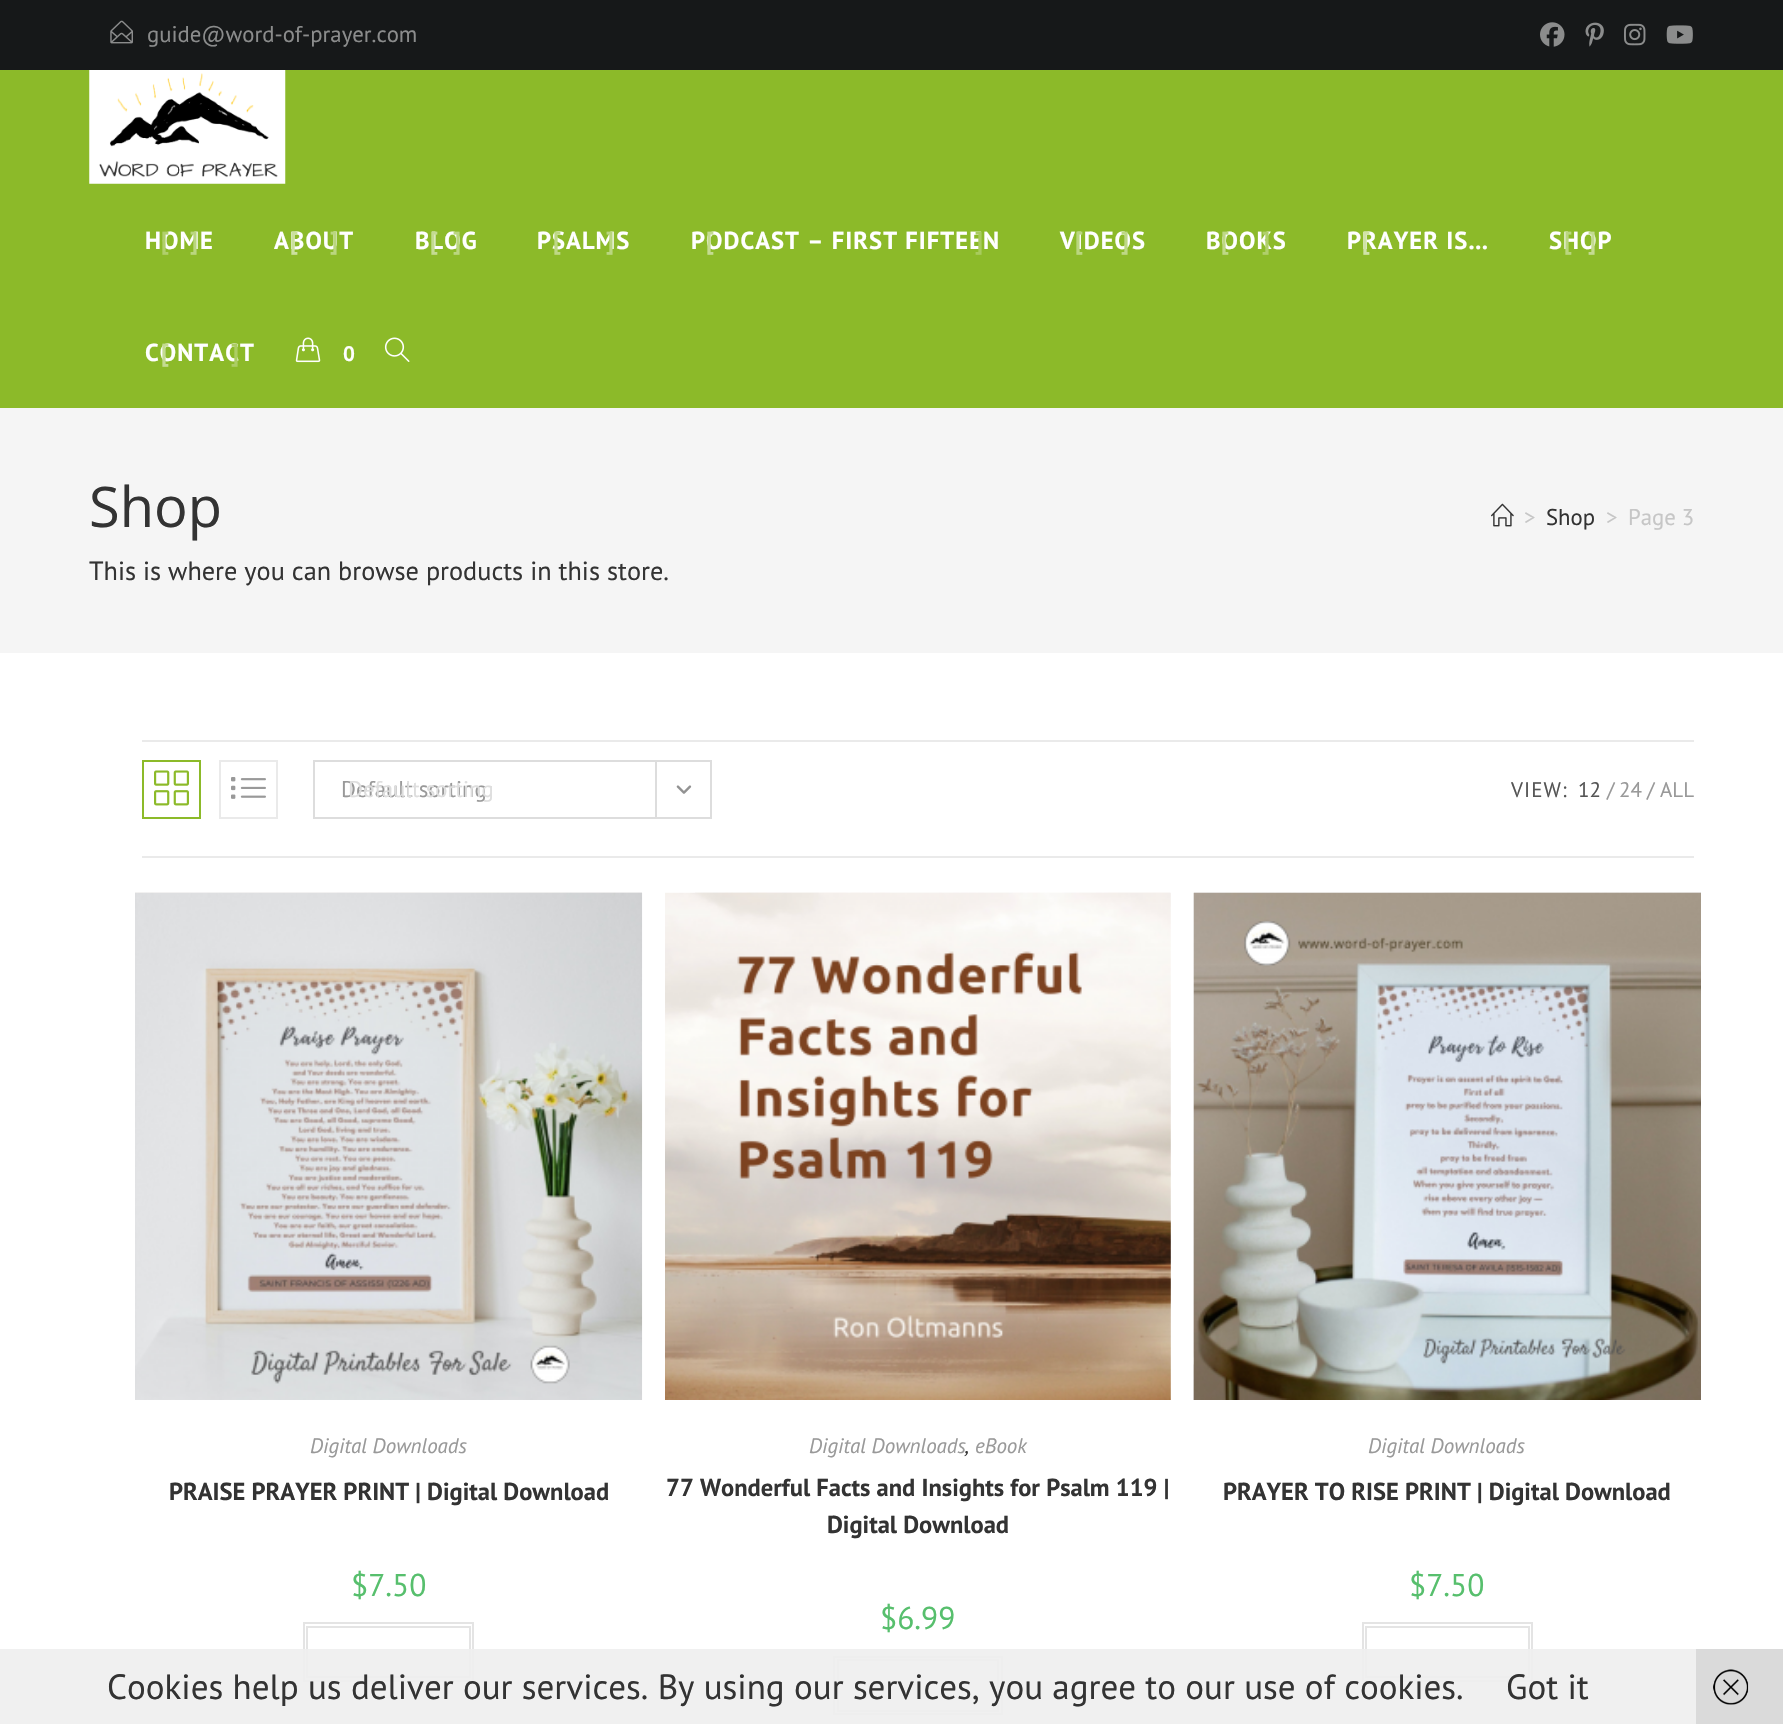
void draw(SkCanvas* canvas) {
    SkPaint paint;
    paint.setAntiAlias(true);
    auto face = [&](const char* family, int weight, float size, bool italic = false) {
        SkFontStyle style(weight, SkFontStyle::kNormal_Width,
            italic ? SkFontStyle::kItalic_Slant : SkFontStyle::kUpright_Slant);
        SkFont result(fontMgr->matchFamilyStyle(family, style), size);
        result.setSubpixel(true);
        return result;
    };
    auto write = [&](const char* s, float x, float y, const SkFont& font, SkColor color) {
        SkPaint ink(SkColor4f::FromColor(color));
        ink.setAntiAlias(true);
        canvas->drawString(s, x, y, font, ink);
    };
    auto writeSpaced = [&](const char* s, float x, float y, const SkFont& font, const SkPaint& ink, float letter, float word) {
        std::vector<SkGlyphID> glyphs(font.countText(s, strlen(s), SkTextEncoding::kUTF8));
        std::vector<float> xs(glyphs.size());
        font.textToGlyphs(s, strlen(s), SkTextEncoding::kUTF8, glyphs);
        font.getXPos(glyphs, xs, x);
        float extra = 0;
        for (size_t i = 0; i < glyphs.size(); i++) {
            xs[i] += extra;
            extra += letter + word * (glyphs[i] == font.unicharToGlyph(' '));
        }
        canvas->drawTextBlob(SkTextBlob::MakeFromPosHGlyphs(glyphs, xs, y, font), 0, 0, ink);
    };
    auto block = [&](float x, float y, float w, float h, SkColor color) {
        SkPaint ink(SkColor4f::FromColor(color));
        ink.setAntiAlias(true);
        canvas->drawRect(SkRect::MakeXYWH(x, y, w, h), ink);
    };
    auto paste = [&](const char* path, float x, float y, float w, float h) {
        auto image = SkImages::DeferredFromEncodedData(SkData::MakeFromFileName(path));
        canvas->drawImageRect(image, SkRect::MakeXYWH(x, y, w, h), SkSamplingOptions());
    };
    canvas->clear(SK_ColorWHITE);
    block(0, 0, 1783, 70, SkColorSetRGB(22, 24, 25));
    paste("pic1.png", 110, 20, 23, 24);
    auto kFont1 = face("PT Sans", 400, 22.75f);
    write("guide@word-of-prayer.com", 147, 42, kFont1, SkColorSetRGB(139, 140, 140));
    paste("pic2.png", 1540, 22, 25, 25);
    paste("pic3.png", 1585, 22, 19, 25);
    paste("pic4.png", 1624, 23, 22, 23);
    paste("pic5.png", 1666, 25, 27, 19);
    block(0, 70, 1783, 338, SkColorSetRGB(140, 186, 41));
    paste("pic6.png", 89, 70, 197, 114);
    auto kFont2 = face("PT Sans", 700, 24.5f);
    paint.setColor(SK_ColorWHITE);
    writeSpaced("HOME", 145, 249, kFont2, paint, 1.05f, 0);
    paint.setColor(SkColorSetRGB(176, 207, 107));
    writeSpaced("[", 161, 249, kFont2, paint, 1.05f, 0);
    paint.setColor(SkColorSetRGB(186, 214, 127));
    writeSpaced("]", 190, 249, kFont2, paint, 1.05f, 0);
    paint.setColor(SK_ColorWHITE);
    writeSpaced("ABOUT", 274, 249, kFont2, paint, 1.05f, 0);
    paint.setColor(SkColorSetRGB(203, 224, 158));
    writeSpaced("[", 290, 249, kFont2, paint, 1.05f, 0);
    paint.setColor(SkColorSetRGB(186, 214, 127));
    writeSpaced("]", 330, 249, kFont2, paint, 1.05f, 0);
    paint.setColor(SK_ColorWHITE);
    writeSpaced("BLOG", 415, 249, kFont2, paint, 1.05f, 0);
    paint.setColor(SkColorSetRGB(196, 219, 145));
    writeSpaced("[", 430, 249, kFont2, paint, 1.05f, 0);
    paint.setColor(SkColorSetRGB(186, 214, 127));
    writeSpaced("]", 453, 249, kFont2, paint, 1.05f, 0);
    paint.setColor(SK_ColorWHITE);
    writeSpaced("PSALMS", 537, 249, kFont2, paint, 1.05f, 0);
    paint.setColor(SkColorSetRGB(190, 216, 133));
    writeSpaced("[", 553, 249, kFont2, paint, 1.05f, 0);
    paint.setColor(SkColorSetRGB(186, 214, 127));
    writeSpaced("]", 606, 249, kFont2, paint, 1.05f, 0);
    paint.setColor(SK_ColorWHITE);
    writeSpaced("PODCAST – FIRST FIFTEEN", 691, 249, kFont2, paint, 1.05f, 0);
    paint.setColor(SkColorSetRGB(196, 219, 145));
    writeSpaced("[", 706, 249, kFont2, paint, 1.05f, 0);
    paint.setColor(SkColorSetRGB(168, 203, 93));
    writeSpaced("]", 975, 249, kFont2, paint, 1.05f, 0);
    paint.setColor(SK_ColorWHITE);
    writeSpaced("VIDEOS", 1060, 249, kFont2, paint, 1.05f, 0);
    paint.setColor(SkColorSetRGB(186, 214, 127));
    writeSpaced("[", 1075, 249, kFont2, paint, 1.05f, 0);
    paint.setColor(SkColorSetRGB(190, 216, 133));
    writeSpaced("]", 1121, 249, kFont2, paint, 1.05f, 0);
    paint.setColor(SK_ColorWHITE);
    writeSpaced("BOOKS", 1206, 249, kFont2, paint, 1.05f, 0);
    paint.setColor(SkColorSetRGB(190, 216, 133));
    writeSpaced("[", 1221, 249, kFont2, paint, 1.05f, 0);
    paint.setColor(SkColorSetRGB(176, 207, 107));
    writeSpaced("]", 1262, 249, kFont2, paint, 1.05f, 0);
    paint.setColor(SK_ColorWHITE);
    writeSpaced("PRAYER IS…", 1347, 249, kFont2, paint, 1.05f, 0);
    paint.setColor(SkColorSetRGB(208, 227, 167));
    writeSpaced("[", 1362, 249, kFont2, paint, 1.05f, 0);
    paint.setColor(SK_ColorWHITE);
    writeSpaced("SHOP", 1549, 249, kFont2, paint, 1.05f, 0);
    paint.setColor(SkColorSetRGB(186, 214, 127));
    writeSpaced("[", 1564, 249, kFont2, paint, 1.05f, 0);
    paint.setColor(SkColorSetRGB(196, 219, 145));
    writeSpaced("]", 1588, 249, kFont2, paint, 1.05f, 0);
    paint.setColor(SK_ColorWHITE);
    writeSpaced("CONTACT", 145, 361, kFont2, paint, 1.05f, 0);
    paint.setColor(SkColorSetRGB(196, 219, 145));
    writeSpaced("[", 161, 361, kFont2, paint, 1.05f, 0);
    paint.setColor(SkColorSetRGB(172, 205, 100));
    writeSpaced("]", 231, 361, kFont2, paint, 1.05f, 0);
    paste("pic7.png", 295, 337, 26, 26);
    auto kFont3 = face("PT Sans", 700, 21);
    write("0", 343, 361, kFont3, SK_ColorWHITE);
    paste("pic8.png", 384, 337, 26, 25);
    block(0, 408, 1783, 245, SkColorSetRGB(245, 245, 245));
    auto kFont4 = face("Open Sans", 400, 56);
    write("Shop", 89, 527, kFont4, SkColorSetRGB(51, 51, 51));
    paste("pic9.png", 1491, 503, 23, 24);
    write(">", 1524, 525, kFont1, SkColorSetRGB(198, 198, 198));
    write("Shop", 1546, 525, kFont1, SkColorSetRGB(51, 51, 51));
    write(">", 1606, 525, kFont1, SkColorSetRGB(198, 198, 198));
    write("Page 3", 1628, 525, kFont1, SkColorSetRGB(198, 198, 198));
    auto kFont5 = face("PT Sans", 400, 26.25f);
    write("This is where you can browse products in this store.", 89, 580, kFont5, SkColorSetRGB(51, 51, 51));
    block(142, 740, 1552, 2, SkColorSetRGB(234, 234, 234));
    block(142, 856, 1552, 2, SkColorSetRGB(234, 234, 234));
    paint.setStyle(SkPaint::kStroke_Style);
    paint.setStrokeWidth(2);
    paint.setColor(SkColorSetRGB(140, 186, 41));
    canvas->drawRect(SkRect::MakeXYWH(143, 761, 57, 57), paint);
    paste("pic10.png", 154, 770, 35, 36);
    paint.setColor(SkColorSetRGB(234, 234, 234));
    canvas->drawRect(SkRect::MakeXYWH(220, 761, 57, 57), paint);
    paste("pic11.png", 231, 777, 35, 22);
    paint.setColor(SkColorSetRGB(221, 221, 221));
    canvas->drawRect(SkRect::MakeXYWH(314, 761, 397, 57), paint);
    write("Default sorting", 341, 797, kFont1, SkColorSetRGB(153, 153, 153));
    block(655, 761, 2, 56, SkColorSetRGB(221, 221, 221));
    paste("pic12.png", 676, 785, 16, 9);
    write("Default sorting", 348, 797, kFont1, SkColorSetRGB(222, 222, 222));
    auto kFont6 = face("PT Sans", 400, 21);
    paint.setStyle(SkPaint::kFill_Style);
    paint.setColor(SkColorSetRGB(85, 85, 85));
    writeSpaced("VIEW:", 1511, 797, kFont6, paint, 1.05f, 0);
    write("12", 1578, 797, kFont6, SkColorSetRGB(85, 85, 85));
    write("/", 1607, 797, kFont6, SkColorSetRGB(153, 153, 153));
    write("24", 1619, 797, kFont6, SkColorSetRGB(153, 153, 153));
    write("/", 1647, 797, kFont6, SkColorSetRGB(153, 153, 153));
    write("ALL", 1660, 797, kFont6, SkColorSetRGB(153, 153, 153));
    paste("pic13.png", 135, 892, 507, 1);
    paste("pic14.png", 135, 892, 508, 508);
    auto kFont7 = face("PT Sans", 400, 21, true);
    write("Digital Downloads", 310, 1453, kFont7, SkColorSetRGB(153, 153, 153));
    write("PRAISE PRAYER PRINT | Digital Download", 169, 1500, kFont2, SkColorSetRGB(51, 51, 51));
    auto kFont8 = face("PT Sans", 400, 31.5f);
    write("$7.50", 351, 1596, kFont8, SkColorSetRGB(87, 191, 109));
    paint.setStyle(SkPaint::kStroke_Style);
    paint.setColor(SkColorSetRGB(228, 228, 228));
    canvas->drawRect(SkRect::MakeXYWH(304, 1623, 169, 58), paint);
    canvas->drawRect(SkRect::MakeXYWH(307, 1627, 163, 50), paint);
    paste("pic15.png", 665, 892, 506, 508);
    paste("pic16.png", 695, 892, 476, 508);
    write("Digital Downloads", 809, 1453, kFont7, SkColorSetRGB(153, 153, 153));
    write(",", 965, 1453, kFont7, SkColorSetRGB(51, 51, 51));
    write("eBook", 975, 1453, kFont7, SkColorSetRGB(153, 153, 153));
    write("77 Wonderful Facts and Insights for Psalm 119 |", 666, 1496, kFont2, SkColorSetRGB(51, 51, 51));
    write("Digital Download", 827, 1533, kFont2, SkColorSetRGB(51, 51, 51));
    write("$6.99", 880, 1629, kFont8, SkColorSetRGB(87, 191, 109));
    canvas->drawRect(SkRect::MakeXYWH(834, 1657, 168, 57), paint);
    canvas->drawRect(SkRect::MakeXYWH(838, 1660, 160, 51), paint);
    paste("pic17.png", 1193, 892, 508, 508);
    paste("pic18.png", 1193, 892, 508, 508);
    write("Digital Downloads", 1368, 1453, kFont7, SkColorSetRGB(153, 153, 153));
    write("PRAYER TO RISE PRINT | Digital Download", 1223, 1500, kFont2, SkColorSetRGB(51, 51, 51));
    write("$7.50", 1409, 1596, kFont8, SkColorSetRGB(87, 191, 109));
    canvas->drawRect(SkRect::MakeXYWH(1363, 1623, 169, 58), paint);
    canvas->drawRect(SkRect::MakeXYWH(1366, 1627, 163, 50), paint);
    block(0, 1649, 1696, 75, SkColorSetARGB(230, 238, 238, 238));
    auto kFont9 = face("PT Sans", 400, 35);
    write("Cookies help us deliver our services. By using our services, you agree to our use of cookies.", 107, 1699, kFont9, SkColorSetRGB(51, 51, 51));
    write("Got it", 1506, 1699, kFont9, SkColorSetRGB(51, 51, 51));
    block(1696, 1649, 87, 75, SkColorSetRGB(218, 218, 218));
    paste("pic19.png", 1713, 1669, 36, 36);
}
